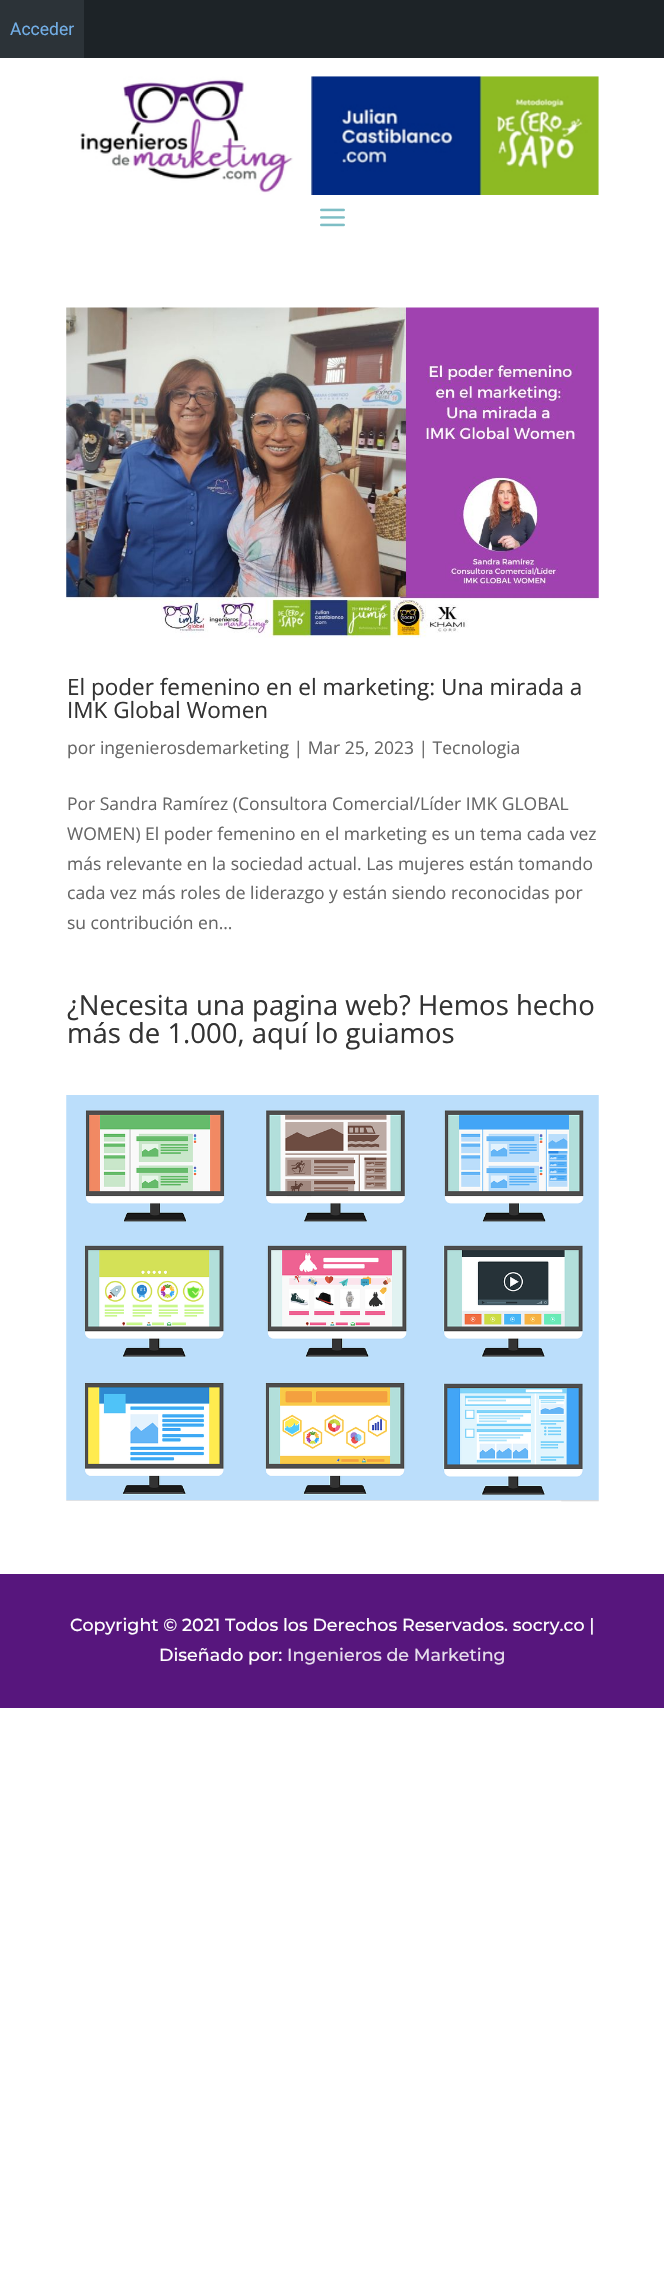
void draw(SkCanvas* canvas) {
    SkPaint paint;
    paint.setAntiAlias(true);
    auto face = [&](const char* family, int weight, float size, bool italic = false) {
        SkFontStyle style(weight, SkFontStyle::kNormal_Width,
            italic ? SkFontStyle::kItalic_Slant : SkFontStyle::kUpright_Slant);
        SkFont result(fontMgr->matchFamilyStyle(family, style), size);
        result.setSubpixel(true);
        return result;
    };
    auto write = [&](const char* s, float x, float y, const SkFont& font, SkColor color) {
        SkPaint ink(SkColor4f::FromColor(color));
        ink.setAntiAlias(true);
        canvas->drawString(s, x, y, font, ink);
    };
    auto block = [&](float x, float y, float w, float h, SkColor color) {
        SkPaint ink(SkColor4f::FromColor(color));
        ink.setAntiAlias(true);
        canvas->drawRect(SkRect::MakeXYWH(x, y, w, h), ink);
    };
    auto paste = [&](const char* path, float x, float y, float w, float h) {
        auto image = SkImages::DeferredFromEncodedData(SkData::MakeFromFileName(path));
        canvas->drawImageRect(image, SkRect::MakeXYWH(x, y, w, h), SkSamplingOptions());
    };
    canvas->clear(SK_ColorWHITE);
    block(84, 0, 580, 58, SkColorSetRGB(29, 35, 39));
    block(0, 0, 84, 58, SkColorSetRGB(44, 51, 56));
    auto kFont1 = face("Roboto", 400, 17.5f);
    write("Acceder", 10, 35, kFont1, SkColorSetRGB(114, 174, 230));
    paste("pic1.png", 80, 76, 519, 119);
    paste("pic2.png", 320, 208, 25, 19);
    paste("pic3.png", 66, 307, 533, 331);
    auto kFont2 = face("Open Sans", 400, 22.5f);
    write("El poder femenino en el marketing: Una mirada a", 67, 695, kFont2, SkColorSetRGB(51, 51, 51));
    write("IMK Global Women", 67, 718, kFont2, SkColorSetRGB(51, 51, 51));
    auto kFont3 = face("Open Sans", 400, 17.5f);
    write("por ingenierosdemarketing | Mar 25, 2023 | Tecnologia", 67, 754, kFont3, SkColorSetRGB(102, 102, 102));
    write("Por Sandra Ramírez (Consultora Comercial/Líder IMK GLOBAL", 67, 810, kFont3, SkColorSetRGB(102, 102, 102));
    write("WOMEN) El poder femenino en el marketing es un tema cada vez", 67, 840, kFont3, SkColorSetRGB(102, 102, 102));
    write("más relevante en la sociedad actual. Las mujeres están tomando", 67, 870, kFont3, SkColorSetRGB(102, 102, 102));
    write("cada vez más roles de liderazgo y están siendo reconocidas por", 67, 899, kFont3, SkColorSetRGB(102, 102, 102));
    write("su contribución en...", 67, 929, kFont3, SkColorSetRGB(102, 102, 102));
    auto kFont4 = face("Open Sans", 400, 27.5f);
    write("¿Necesita una pagina web? Hemos hecho", 67, 1015, kFont4, SkColorSetRGB(51, 51, 51));
    write("más de 1.000, aquí lo guiamos", 67, 1043, kFont4, SkColorSetRGB(51, 51, 51));
    paste("pic4.png", 66, 1095, 533, 407);
    block(0, 1574, 664, 134, SkColorSetRGB(87, 22, 125));
    auto kFont5 = face("Montserrat", 100, 17.5f);
    write("Copyright © 2021 Todos los Derechos Reservados. socry.co |", 70, 1631, kFont5, SK_ColorWHITE);
    write("Diseñado por:", 159, 1661, kFont5, SK_ColorWHITE);
    write("Ingenieros de Marketing", 287, 1661, kFont5, SkColorSetRGB(231, 222, 237));
}
